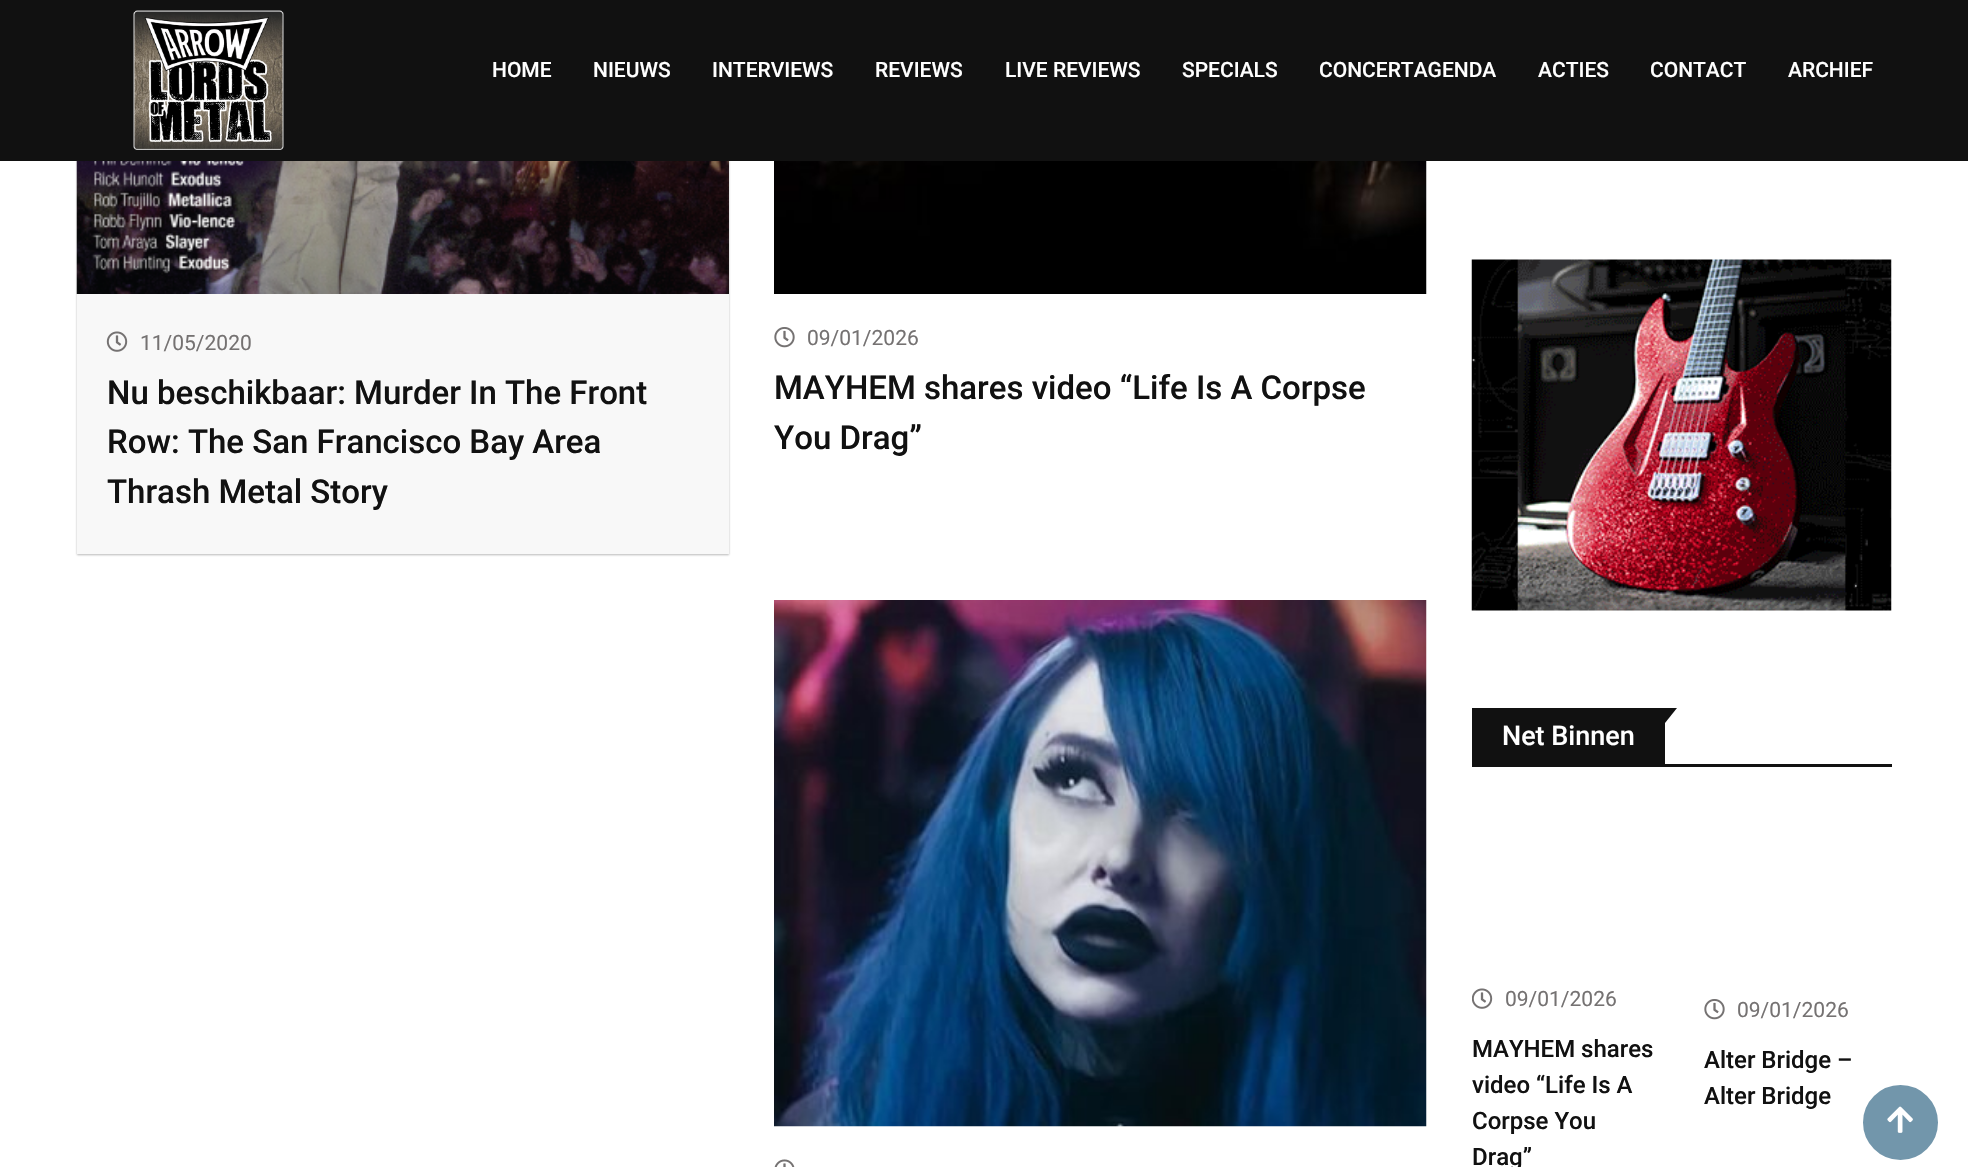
void draw(SkCanvas* canvas) {
    SkPaint paint;
    paint.setAntiAlias(true);
    auto face = [&](const char* family, int weight, float size, bool italic = false) {
        SkFontStyle style(weight, SkFontStyle::kNormal_Width,
            italic ? SkFontStyle::kItalic_Slant : SkFontStyle::kUpright_Slant);
        SkFont result(fontMgr->matchFamilyStyle(family, style), size);
        result.setSubpixel(true);
        return result;
    };
    auto write = [&](const char* s, float x, float y, const SkFont& font, SkColor color) {
        SkPaint ink(SkColor4f::FromColor(color));
        ink.setAntiAlias(true);
        canvas->drawString(s, x, y, font, ink);
    };
    auto block = [&](float x, float y, float w, float h, SkColor color) {
        SkPaint ink(SkColor4f::FromColor(color));
        ink.setAntiAlias(true);
        canvas->drawRect(SkRect::MakeXYWH(x, y, w, h), ink);
    };
    auto paste = [&](const char* path, float x, float y, float w, float h) {
        auto image = SkImages::DeferredFromEncodedData(SkData::MakeFromFileName(path));
        canvas->drawImageRect(image, SkRect::MakeXYWH(x, y, w, h), SkSamplingOptions());
    };
    canvas->clear(SK_ColorWHITE);
    paint.setColor(SkColorSetARGB(128, 111, 111, 111));
    paint.setMaskFilter(SkMaskFilter::MakeBlur(kNormal_SkBlurStyle, 1));
    canvas->drawRect(SkRect::MakeXYWH(77, -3, 652, 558), paint);
    paint.setMaskFilter(nullptr);
    block(0, 0, 1968, 161, SkColorSetRGB(17, 17, 17));
    paste("pic1.png", 133, 10, 151, 140);
    auto kFont1 = face("Roboto", 500, 21);
    write("HOME", 492, 77, kFont1, SK_ColorWHITE);
    write("NIEUWS", 593, 77, kFont1, SK_ColorWHITE);
    write("INTERVIEWS", 712, 77, kFont1, SK_ColorWHITE);
    write("REVIEWS", 875, 77, kFont1, SK_ColorWHITE);
    write("LIVE REVIEWS", 1005, 77, kFont1, SK_ColorWHITE);
    write("SPECIALS", 1182, 77, kFont1, SK_ColorWHITE);
    write("CONCERTAGENDA", 1319, 77, kFont1, SK_ColorWHITE);
    write("ACTIES", 1538, 77, kFont1, SK_ColorWHITE);
    write("CONTACT", 1650, 77, kFont1, SK_ColorWHITE);
    write("ARCHIEF", 1788, 77, kFont1, SK_ColorWHITE);
    block(77, 294, 652, 260, SkColorSetRGB(248, 248, 248));
    paste("pic2.png", 76, 161, 653, 133);
    paste("pic3.png", 106, 331, 22, 21);
    auto kFont2 = face("Roboto", 400, 21);
    write("11/05/2020", 140, 350, kFont2, SkColorSetRGB(117, 114, 114));
    auto kFont3 = face("Roboto", 500, 33);
    write("Nu beschikbaar: Murder In The Front", 107, 404, kFont3, SkColorSetRGB(17, 17, 17));
    write("Row: The San Francisco Bay Area", 107, 453, kFont3, SkColorSetRGB(17, 17, 17));
    write("Thrash Metal Story", 107, 503, kFont3, SkColorSetRGB(17, 17, 17));
    paste("pic4.png", 774, 161, 653, 133);
    paste("pic5.png", 774, 327, 21, 21);
    write("09/01/2026", 807, 345, kFont2, SkColorSetRGB(117, 114, 114));
    write("MAYHEM shares video “Life Is A Corpse", 774, 399, kFont3, SkColorSetRGB(17, 17, 17));
    write("You Drag”", 774, 449, kFont3, SkColorSetRGB(17, 17, 17));
    paste("pic6.png", 774, 600, 653, 527);
    paste("pic7.png", 774, 1159, 21, 8);
    paste("pic8.png", 1471, 259, 421, 352);
    block(1472, 764, 420, 3, SkColorSetRGB(17, 17, 17));
    block(1472, 708, 193, 56, SkColorSetRGB(17, 17, 17));
    paint.setColor(SkColorSetRGB(17, 17, 17));
    canvas->drawPath(SkPathBuilder().moveTo(1665, 708).lineTo(1677, 708).lineTo(1665, 723).close().detach(), paint);
    auto kFont4 = face("Roboto", 500, 27);
    write("Net Binnen", 1502, 745, kFont4, SK_ColorWHITE);
    paste("pic9.png", 1472, 988, 21, 21);
    write("09/01/2026", 1505, 1006, kFont2, SkColorSetRGB(117, 114, 114));
    auto kFont5 = face("Roboto", 500, 24);
    write("MAYHEM shares", 1472, 1057, kFont5, SkColorSetRGB(17, 17, 17));
    write("video “Life Is A", 1472, 1093, kFont5, SkColorSetRGB(17, 17, 17));
    write("Corpse You", 1472, 1129, kFont5, SkColorSetRGB(17, 17, 17));
    write("Drag”", 1472, 1165, kFont5, SkColorSetRGB(17, 17, 17));
    paste("pic5.png", 1704, 999, 21, 21);
    write("09/01/2026", 1737, 1017, kFont2, SkColorSetRGB(117, 114, 114));
    write("Alter Bridge –", 1704, 1068, kFont5, SkColorSetRGB(17, 17, 17));
    write("Alter Bridge", 1704, 1104, kFont5, SkColorSetRGB(17, 17, 17));
    paint.setColor(SkColorSetRGB(114, 150, 171));
    canvas->drawCircle(1900.5f, 1122.5f, 36, paint);
    paint.setStyle(SkPaint::kStroke_Style);
    paint.setStrokeWidth(3);
    canvas->drawCircle(1900.5f, 1122.5f, 36, paint);
    paste("pic10.png", 1887, 1106, 26, 27);
}
